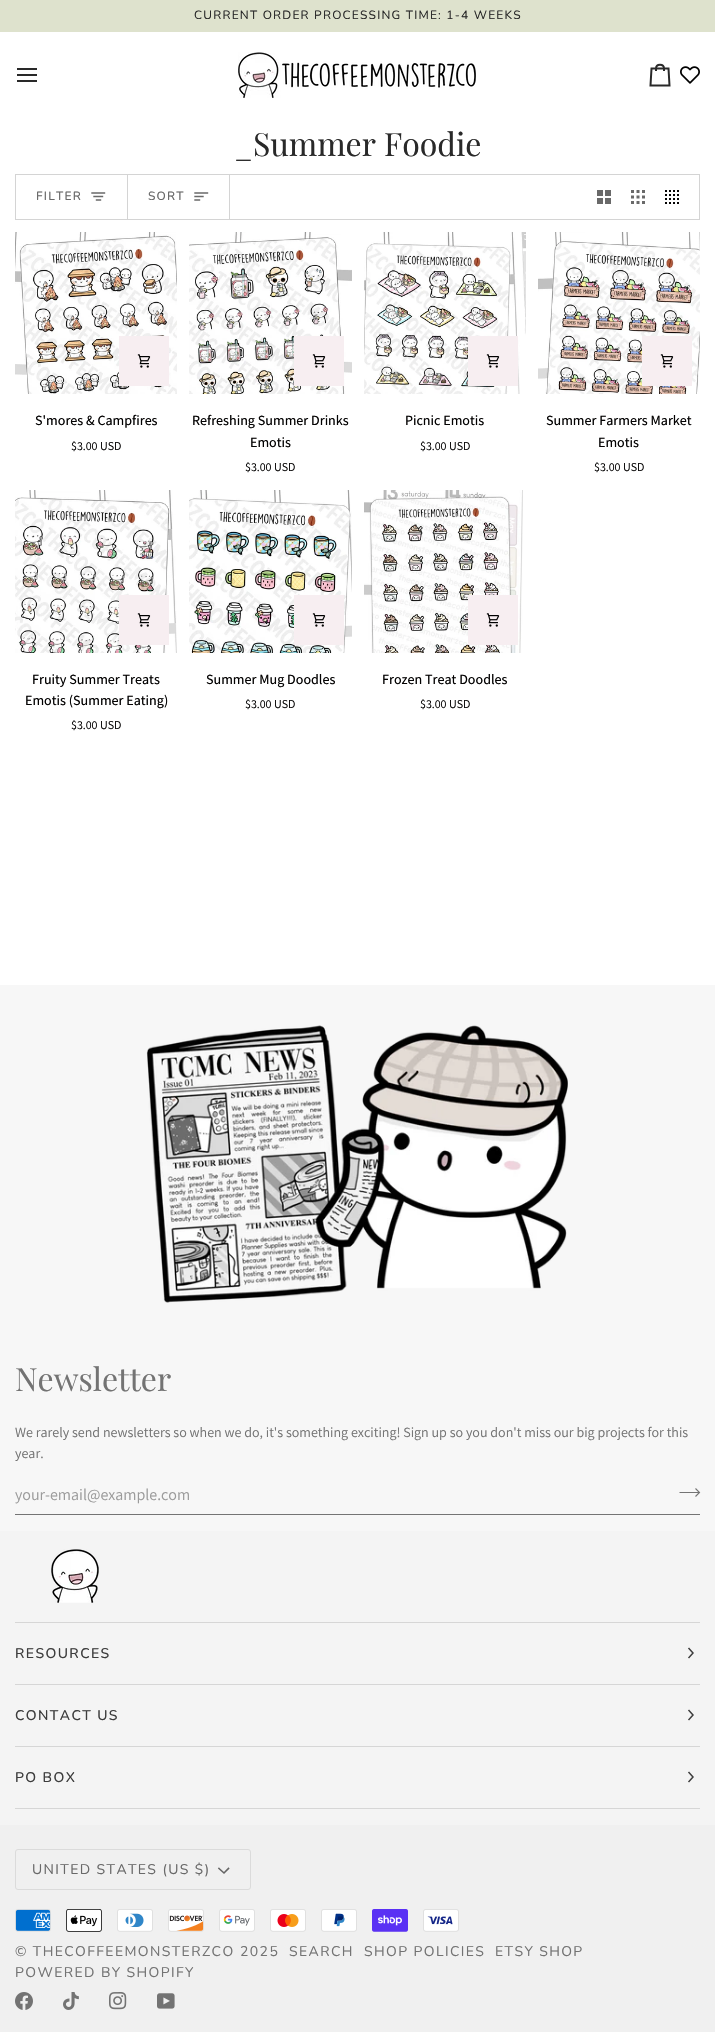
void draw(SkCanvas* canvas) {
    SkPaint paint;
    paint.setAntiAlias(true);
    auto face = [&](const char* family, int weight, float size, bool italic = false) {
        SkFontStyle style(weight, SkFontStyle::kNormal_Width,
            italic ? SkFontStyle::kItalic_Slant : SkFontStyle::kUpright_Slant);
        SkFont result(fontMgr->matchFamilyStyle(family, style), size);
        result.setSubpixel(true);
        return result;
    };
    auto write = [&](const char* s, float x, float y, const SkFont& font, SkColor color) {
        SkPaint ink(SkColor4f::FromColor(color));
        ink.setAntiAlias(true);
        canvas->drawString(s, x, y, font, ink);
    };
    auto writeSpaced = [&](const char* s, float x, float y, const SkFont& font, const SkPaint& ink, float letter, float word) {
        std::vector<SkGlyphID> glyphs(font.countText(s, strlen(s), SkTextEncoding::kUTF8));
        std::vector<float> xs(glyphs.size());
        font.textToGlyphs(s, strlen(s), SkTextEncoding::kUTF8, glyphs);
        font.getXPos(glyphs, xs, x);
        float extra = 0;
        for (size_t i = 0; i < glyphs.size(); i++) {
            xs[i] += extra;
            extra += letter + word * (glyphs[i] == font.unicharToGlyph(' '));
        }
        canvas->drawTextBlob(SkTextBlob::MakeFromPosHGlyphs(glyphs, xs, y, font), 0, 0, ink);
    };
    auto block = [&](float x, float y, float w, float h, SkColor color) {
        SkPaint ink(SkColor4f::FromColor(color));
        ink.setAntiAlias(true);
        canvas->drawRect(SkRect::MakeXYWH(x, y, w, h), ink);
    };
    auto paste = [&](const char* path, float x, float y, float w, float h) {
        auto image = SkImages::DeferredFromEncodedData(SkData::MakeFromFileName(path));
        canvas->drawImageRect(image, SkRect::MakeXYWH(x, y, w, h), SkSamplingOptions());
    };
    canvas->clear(SK_ColorWHITE);
    block(0, 0, 715, 32, SkColorSetRGB(222, 226, 205));
    auto kFont1 = face("Nunito", 400, 12);
    paint.setColor(SkColorSetRGB(41, 41, 41));
    writeSpaced("CURRENT ORDER PROCESSING TIME: 1-4 WEEKS", 194, 19, kFont1, paint, 1.2f, 0);
    paint.setStyle(SkPaint::kStroke_Style);
    paint.setStrokeWidth(2);
    paint.setStrokeCap(SkPaint::kSquare_Cap);
    canvas->drawPath(SkPathBuilder().moveTo(36, 69).lineTo(18, 69).moveTo(36, 75).lineTo(18, 75).moveTo(36, 81).lineTo(18, 81).detach(), paint);
    paste("pic1.png", 238, 52, 238, 46);
    paint.setStrokeCap(SkPaint::kButt_Cap);
    canvas->drawPath(SkPathBuilder().moveTo(664, 71).lineTo(664, 68.5f).lineTo(668.5f, 68.5f).lineTo(669.5f, 85.5f).lineTo(650.5f, 85.5f).lineTo(651.5f, 68.5f).lineTo(656, 68.5f).cubicTo(656, 63.5f, 664, 63.5f, 664, 68.5f).lineTo(656, 68.5f).lineTo(656, 71).detach(), paint);
    paste("pic2.png", 680, 66, 20, 18);
    auto kFont2 = face("Playfair Display", 400, 32);
    write("_Summer Foodie", 234, 156, kFont2, SkColorSetRGB(41, 41, 41));
    paint.setStrokeWidth(1);
    paint.setColor(SkColorSetRGB(212, 212, 212));
    canvas->drawRect(SkRect::MakeXYWH(15.5f, 174.5f, 684, 45), paint);
    block(127, 175, 1, 44, SkColorSetRGB(212, 212, 212));
    auto kFont3 = face("Nunito", 500, 12);
    paint.setStyle(SkPaint::kFill_Style);
    paint.setColor(SkColorSetRGB(105, 105, 105));
    writeSpaced("FILTER", 36, 200, kFont3, paint, 1.2f, 0);
    paint.setStyle(SkPaint::kStroke_Style);
    paint.setStrokeWidth(1.4f);
    paint.setStrokeCap(SkPaint::kSquare_Cap);
    canvas->drawPath(SkPathBuilder().moveTo(104.5f, 193).lineTo(92, 193).moveTo(102.5f, 196.5f).lineTo(94, 196.5f).moveTo(100.5f, 200).lineTo(96.5f, 200).detach(), paint);
    block(229, 175, 1, 44, SkColorSetRGB(212, 212, 212));
    paint.setStyle(SkPaint::kFill_Style);
    writeSpaced("SORT", 148, 200, kFont3, paint, 1.2f, 0);
    paint.setStyle(SkPaint::kStroke_Style);
    canvas->drawPath(SkPathBuilder().moveTo(207.5f, 193).lineTo(195, 193).moveTo(203, 196.5f).lineTo(195, 196.5f).moveTo(199.5f, 200).lineTo(195, 200).detach(), paint);
    paste("pic3.png", 597, 190, 14, 14);
    paste("pic4.png", 631, 190, 14, 14);
    paste("pic5.png", 665, 190, 14, 14);
    paste("pic6.png", 15, 232, 162, 162);
    block(119, 336, 50, 50, SkColorSetRGB(247, 238, 241));
    paste("pic7.png", 137, 354, 14, 14);
    auto kFont4 = face("Assistant", 500, 14.05f);
    write("S'mores & Campfires", 35, 425, kFont4, SkColorSetRGB(3, 2, 2));
    auto kFont5 = face("Assistant", 400, 12);
    write("$3.00 USD", 71, 450, kFont5, SkColorSetRGB(3, 2, 2));
    paste("pic8.png", 189, 232, 163, 162);
    block(294, 336, 50, 50, SkColorSetRGB(247, 238, 241));
    paste("pic7.png", 312, 354, 14, 14);
    write("Refreshing Summer Drinks", 192, 425, kFont4, SkColorSetRGB(3, 2, 2));
    write("Emotis", 250, 447, kFont4, SkColorSetRGB(3, 2, 2));
    write("$3.00 USD", 245, 471, kFont5, SkColorSetRGB(3, 2, 2));
    paste("pic9.png", 364, 232, 162, 162);
    block(468, 336, 50, 50, SkColorSetRGB(247, 238, 241));
    paste("pic7.png", 486, 354, 14, 14);
    write("Picnic Emotis", 405, 425, kFont4, SkColorSetRGB(3, 2, 2));
    write("$3.00 USD", 420, 450, kFont5, SkColorSetRGB(3, 2, 2));
    paste("pic10.png", 538, 232, 162, 162);
    block(642, 336, 50, 50, SkColorSetRGB(247, 238, 241));
    paste("pic7.png", 660, 354, 14, 14);
    write("Summer Farmers Market", 546, 425, kFont4, SkColorSetRGB(3, 2, 2));
    write("Emotis", 598, 447, kFont4, SkColorSetRGB(3, 2, 2));
    write("$3.00 USD", 594, 471, kFont5, SkColorSetRGB(3, 2, 2));
    paste("pic11.png", 15, 490, 162, 163);
    block(119, 595, 50, 50, SkColorSetRGB(247, 238, 241));
    paste("pic7.png", 137, 613, 14, 14);
    write("Fruity Summer Treats", 32, 684, kFont4, SkColorSetRGB(3, 2, 2));
    write("Emotis (Summer Eating)", 25, 705, kFont4, SkColorSetRGB(3, 2, 2));
    write("$3.00 USD", 71, 729, kFont5, SkColorSetRGB(3, 2, 2));
    paste("pic12.png", 189, 490, 163, 163);
    block(294, 595, 50, 50, SkColorSetRGB(247, 238, 241));
    paste("pic7.png", 312, 613, 14, 14);
    write("Summer Mug Doodles", 206, 684, kFont4, SkColorSetRGB(3, 2, 2));
    write("$3.00 USD", 245, 708, kFont5, SkColorSetRGB(3, 2, 2));
    paste("pic13.png", 364, 490, 159, 163);
    block(468, 595, 50, 50, SkColorSetRGB(247, 238, 241));
    paste("pic7.png", 486, 613, 14, 14);
    write("Frozen Treat Doodles", 382, 684, kFont4, SkColorSetRGB(3, 2, 2));
    write("$3.00 USD", 420, 708, kFont5, SkColorSetRGB(3, 2, 2));
    block(0, 1531, 715, 294, SkColorSetRGB(244, 244, 244));
    block(0, 985, 715, 546, SkColorSetRGB(247, 247, 247));
    paste("pic14.png", 146, 1025, 422, 278);
    write("Newsletter", 15, 1391, kFont2, SkColorSetRGB(115, 115, 115));
    auto kFont6 = face("Assistant", 400, 14.05f);
    write("We rarely send newsletters so when we do, it's something exciting! Sign up so you don't miss our big projects for this", 15, 1437, kFont6, SkColorSetRGB(115, 115, 115));
    write("year.", 15, 1458, kFont6, SkColorSetRGB(115, 115, 115));
    block(15, 1514, 685, 1, SkColorSetRGB(116, 116, 116));
    auto kFont7 = face("Assistant", 400, 16);
    write("your-email@example.com", 15, 1500, kFont7, SkColorSetRGB(155, 155, 155));
    paint.setStrokeWidth(1.1f);
    paint.setStrokeCap(SkPaint::kButt_Cap);
    paint.setColor(SkColorSetRGB(116, 116, 116));
    canvas->drawPath(SkPathBuilder().moveTo(695.5f, 1488.5f).lineTo(699.5f, 1492.5f).lineTo(695.5f, 1496.5f).moveTo(679.5f, 1492.5f).lineTo(699.5f, 1492.5f).detach(), paint);
    paste("pic15.png", 51, 1549, 48, 54);
    block(15, 1622, 685, 1, SkColorSetRGB(214, 214, 214));
    block(15, 1684, 685, 1, SkColorSetRGB(214, 214, 214));
    auto kFont8 = face("Nunito", 500, 14);
    paint.setStyle(SkPaint::kFill_Style);
    paint.setColor(SkColorSetRGB(61, 61, 61));
    writeSpaced("RESOURCES", 15, 1658, kFont8, paint, 1.4f, 0);
    paint.setStyle(SkPaint::kStroke_Style);
    paint.setStrokeWidth(1.5f);
    paint.setStrokeCap(SkPaint::kSquare_Cap);
    canvas->drawPath(SkPathBuilder().moveTo(689, 1657.5f).lineTo(693, 1653).lineTo(689, 1648.5f).detach(), paint);
    block(15, 1746, 685, 1, SkColorSetRGB(214, 214, 214));
    paint.setStyle(SkPaint::kFill_Style);
    writeSpaced("CONTACT US", 15, 1720, kFont8, paint, 1.4f, 0);
    paint.setStyle(SkPaint::kStroke_Style);
    canvas->drawPath(SkPathBuilder().moveTo(689, 1719.5f).lineTo(693, 1715).lineTo(689, 1710.5f).detach(), paint);
    block(15, 1808, 685, 1, SkColorSetRGB(214, 214, 214));
    paint.setStyle(SkPaint::kFill_Style);
    writeSpaced("PO BOX", 15, 1782, kFont8, paint, 1.4f, 0);
    paint.setStyle(SkPaint::kStroke_Style);
    canvas->drawPath(SkPathBuilder().moveTo(689, 1781.5f).lineTo(693, 1777).lineTo(689, 1772.5f).detach(), paint);
    block(0, 1825, 715, 207, SkColorSetRGB(240, 240, 240));
    paint.setStrokeWidth(1);
    paint.setStrokeCap(SkPaint::kButt_Cap);
    paint.setColor(SkColorSetRGB(219, 219, 219));
    canvas->drawRoundRect(SkRect::MakeXYWH(15.5f, 1849.5f, 235, 40), 2.5f, 2.5f, paint);
    auto kFont9 = face("Nunito", 400, 14);
    paint.setStyle(SkPaint::kFill_Style);
    paint.setColor(SkColorSetRGB(105, 105, 105));
    writeSpaced("UNITED STATES (US $)", 32, 1874, kFont9, paint, 1.4f, 0);
    paint.setStyle(SkPaint::kStroke_Style);
    paint.setStrokeWidth(1.6f);
    paint.setStrokeCap(SkPaint::kSquare_Cap);
    paint.setColor(SkColorSetRGB(101, 101, 101));
    canvas->drawPath(SkPathBuilder().moveTo(219, 1868.5f).lineTo(224, 1873).lineTo(228.5f, 1868.5f).detach(), paint);
    paste("pic16.png", 15, 1909, 36, 23);
    paste("pic17.png", 66, 1909, 36, 23);
    paste("pic18.png", 117, 1909, 36, 23);
    paste("pic19.png", 168, 1909, 36, 23);
    paste("pic20.png", 219, 1909, 36, 23);
    paste("pic21.png", 270, 1909, 36, 23);
    paste("pic22.png", 321, 1909, 36, 23);
    paste("pic23.png", 372, 1909, 36, 23);
    paste("pic24.png", 423, 1909, 36, 23);
    paint.setStyle(SkPaint::kFill_Style);
    paint.setColor(SkColorSetRGB(115, 115, 115));
    writeSpaced("© THECOFFEEMONSTERZCO", 15, 1956, kFont9, paint, 1.4f, 0);
    writeSpaced("2025", 240, 1956, kFont9, paint, 1.4f, 0);
    writeSpaced("SEARCH", 289, 1956, kFont9, paint, 1.4f, 0);
    writeSpaced("SHOP POLICIES", 364, 1956, kFont9, paint, 1.4f, 0);
    writeSpaced("ETSY SHOP", 495, 1956, kFont9, paint, 1.4f, 0);
    writeSpaced("POWERED BY SHOPIFY", 15, 1977, kFont9, paint, 1.4f, 0);
    paste("pic25.png", 15, 1992, 18, 18);
    paste("pic26.png", 63, 1992, 16, 18);
    paste("pic27.png", 109, 1992, 18, 18);
    paste("pic28.png", 157, 1993, 18, 16);
}
